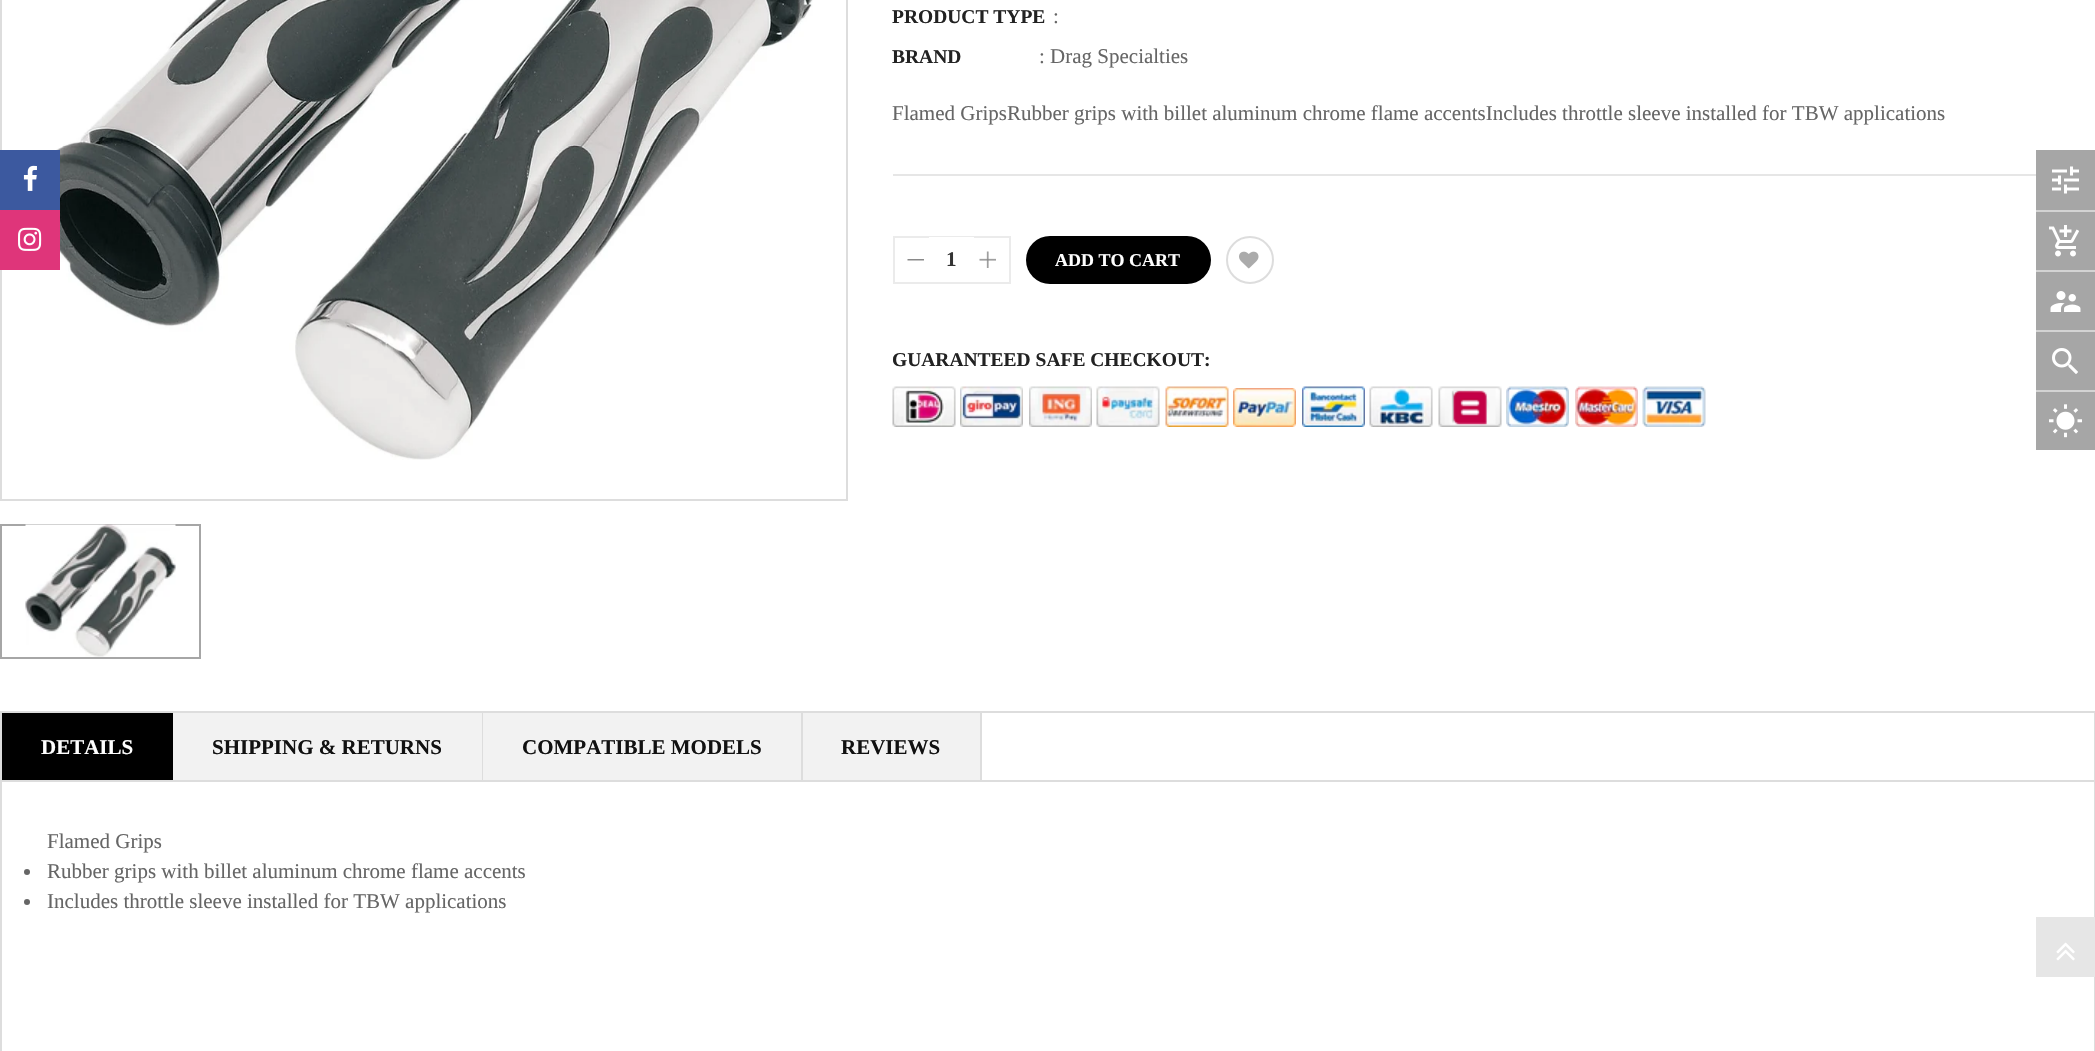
void draw(SkCanvas* canvas) {
    SkPaint paint;
    paint.setAntiAlias(true);
    auto face = [&](const char* family, int weight, float size, bool italic = false) {
        SkFontStyle style(weight, SkFontStyle::kNormal_Width,
            italic ? SkFontStyle::kItalic_Slant : SkFontStyle::kUpright_Slant);
        SkFont result(fontMgr->matchFamilyStyle(family, style), size);
        result.setSubpixel(true);
        return result;
    };
    auto write = [&](const char* s, float x, float y, const SkFont& font, SkColor color) {
        SkPaint ink(SkColor4f::FromColor(color));
        ink.setAntiAlias(true);
        canvas->drawString(s, x, y, font, ink);
    };
    auto block = [&](float x, float y, float w, float h, SkColor color) {
        SkPaint ink(SkColor4f::FromColor(color));
        ink.setAntiAlias(true);
        canvas->drawRect(SkRect::MakeXYWH(x, y, w, h), ink);
    };
    auto card = [&](float x, float y, float w, float h, float radius, SkColor color) {
        SkPaint ink(SkColor4f::FromColor(color));
        ink.setAntiAlias(true);
        canvas->drawRoundRect(SkRect::MakeXYWH(x, y, w, h), radius, radius, ink);
    };
    auto paste = [&](const char* path, float x, float y, float w, float h) {
        auto image = SkImages::DeferredFromEncodedData(SkData::MakeFromFileName(path));
        canvas->drawImageRect(image, SkRect::MakeXYWH(x, y, w, h), SkSamplingOptions());
    };
    canvas->clear(SK_ColorWHITE);
    paint.setStyle(SkPaint::kStroke_Style);
    paint.setStrokeWidth(2);
    paint.setColor(SkColorSetRGB(221, 221, 221));
    canvas->drawRect(SkRect::MakeXYWH(1, -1, 846, 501), paint);
    paste("pic3.png", 32, 0, 781, 460);
    block(0, 150, 60, 60, SkColorSetRGB(60, 89, 159));
    paste("pic1.png", 23, 165, 14, 26);
    block(0, 210, 60, 60, SkColorSetRGB(223, 53, 122));
    paste("pic2.png", 18, 227, 24, 24);
    paint.setColor(SkColorSetRGB(166, 166, 166));
    canvas->drawRect(SkRect::MakeXYWH(1, 525, 199, 133), paint);
    paste("pic4.png", 25, 524, 151, 133);
    auto kFont1 = face("Liberation Serif", 700, 19.5f);
    write("PRODUCT TYPE", 892, 23, kFont1, SkColorSetRGB(34, 34, 34));
    auto kFont2 = face("Liberation Serif", 400, 21);
    write(":", 1053, 23, kFont2, SkColorSetRGB(102, 102, 102));
    write("BRAND", 892, 63, kFont1, SkColorSetRGB(34, 34, 34));
    write(": Drag Specialties", 1039, 63, kFont2, SkColorSetRGB(102, 102, 102));
    block(893, 174, 1143, 2, SkColorSetRGB(230, 230, 230));
    write("Flamed GripsRubber grips with billet aluminum chrome flame accentsIncludes throttle sleeve installed for TBW applications", 892, 120, kFont2, SkColorSetRGB(102, 102, 102));
    paint.setColor(SkColorSetRGB(235, 235, 235));
    canvas->drawRect(SkRect::MakeXYWH(894, 237, 116, 46), paint);
    paste("pic5.png", 907, 259, 17, 2);
    block(929, 237, 45, 1, SK_ColorWHITE);
    auto kFont3 = face("Liberation Serif", 700, 21);
    write("1", 946, 266, kFont3, SkColorSetRGB(51, 51, 51));
    paste("pic6.png", 979, 251, 17, 17);
    card(1026, 236, 185, 48, 24, SK_ColorBLACK);
    auto kFont4 = face("Liberation Serif", 700, 18);
    write("ADD TO CART", 1055, 266, kFont4, SK_ColorWHITE);
    paint.setColor(SkColorSetRGB(221, 221, 221));
    canvas->drawCircle(1250, 260, 23, paint);
    paste("pic7.png", 1239, 251, 20, 18);
    write("GUARANTEED SAFE CHECKOUT:", 892, 366, kFont1, SkColorSetRGB(34, 34, 34));
    paste("pic8.png", 892, 386, 64, 41);
    paste("pic9.png", 960, 386, 63, 41);
    paste("pic10.png", 1029, 386, 63, 41);
    paste("pic11.png", 1096, 386, 64, 41);
    paste("pic12.png", 1165, 386, 64, 41);
    paste("pic13.png", 1233, 388, 63, 39);
    paste("pic14.png", 1302, 386, 63, 41);
    paste("pic15.png", 1369, 386, 64, 41);
    paste("pic16.png", 1438, 386, 64, 41);
    paste("pic17.png", 1506, 386, 63, 41);
    paste("pic18.png", 1575, 386, 63, 41);
    paste("pic19.png", 1642, 386, 64, 41);
    block(0, 711, 2095, 2, SkColorSetRGB(221, 221, 221));
    block(2094, 711, 1, 69, SkColorSetRGB(221, 221, 221));
    block(0, 711, 2, 69, SkColorSetRGB(221, 221, 221));
    block(2, 713, 171, 67, SK_ColorBLACK);
    write("DETAILS", 41, 754, kFont3, SK_ColorWHITE);
    block(173, 713, 309, 67, SkColorSetRGB(242, 242, 242));
    block(482, 713, 1, 67, SkColorSetRGB(221, 221, 221));
    write("SHIPPING & RETURNS", 212, 754, kFont3, SkColorSetRGB(17, 17, 17));
    block(483, 713, 318, 67, SkColorSetRGB(242, 242, 242));
    block(801, 713, 2, 67, SkColorSetRGB(221, 221, 221));
    write("COMPATIBLE MODELS", 522, 754, kFont3, SkColorSetRGB(17, 17, 17));
    block(803, 713, 177, 67, SkColorSetRGB(242, 242, 242));
    block(980, 713, 2, 67, SkColorSetRGB(221, 221, 221));
    write("REVIEWS", 841, 754, kFont3, SkColorSetRGB(17, 17, 17));
    canvas->drawRect(SkRect::MakeXYWH(1, 781, 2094, 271), paint);
    write("Flamed Grips", 47, 848, kFont2, SkColorSetRGB(102, 102, 102));
    paint.setStyle(SkPaint::kFill_Style);
    paint.setColor(SkColorSetRGB(102, 102, 102));
    canvas->drawCircle(27, 872, 3, paint);
    write("Rubber grips with billet aluminum chrome flame accents", 47, 878, kFont2, SkColorSetRGB(102, 102, 102));
    canvas->drawCircle(27, 902, 3, paint);
    write("Includes throttle sleeve installed for TBW applications", 47, 908, kFont2, SkColorSetRGB(102, 102, 102));
    block(2036, 150, 59, 60, SkColorSetRGB(166, 166, 166));
    paste("pic20.png", 2052, 166, 27, 28);
    block(2036, 212, 59, 58, SkColorSetRGB(166, 166, 166));
    block(2036, 210, 59, 2, SkColorSetRGB(211, 211, 211));
    paste("pic21.png", 2049, 225, 30, 32);
    block(2036, 272, 59, 58, SkColorSetRGB(166, 166, 166));
    block(2036, 270, 59, 2, SkColorSetRGB(211, 211, 211));
    paste("pic22.png", 2050, 291, 31, 21);
    block(2036, 332, 59, 58, SkColorSetRGB(166, 166, 166));
    block(2036, 330, 59, 2, SkColorSetRGB(211, 211, 211));
    paste("pic23.png", 2052, 348, 26, 26);
    block(2036, 392, 59, 58, SkColorSetRGB(166, 166, 166));
    block(2036, 390, 59, 2, SkColorSetRGB(211, 211, 211));
    paste("pic24.png", 2049, 404, 33, 34);
    block(2036, 917, 59, 60, SkColorSetRGB(230, 230, 230));
    paste("pic25.png", 2056, 942, 19, 19);
}
